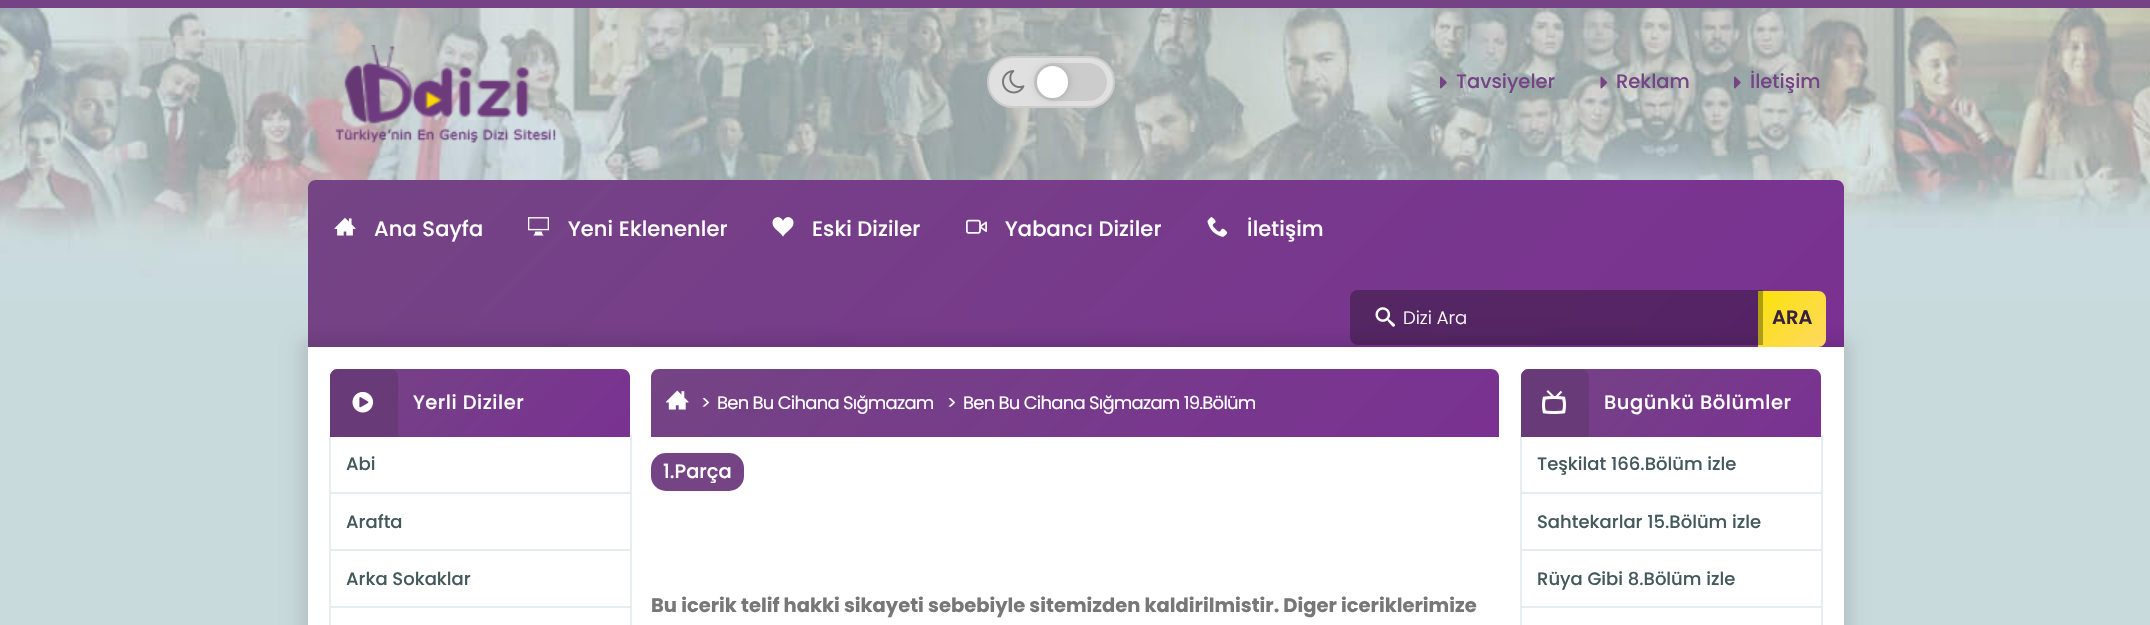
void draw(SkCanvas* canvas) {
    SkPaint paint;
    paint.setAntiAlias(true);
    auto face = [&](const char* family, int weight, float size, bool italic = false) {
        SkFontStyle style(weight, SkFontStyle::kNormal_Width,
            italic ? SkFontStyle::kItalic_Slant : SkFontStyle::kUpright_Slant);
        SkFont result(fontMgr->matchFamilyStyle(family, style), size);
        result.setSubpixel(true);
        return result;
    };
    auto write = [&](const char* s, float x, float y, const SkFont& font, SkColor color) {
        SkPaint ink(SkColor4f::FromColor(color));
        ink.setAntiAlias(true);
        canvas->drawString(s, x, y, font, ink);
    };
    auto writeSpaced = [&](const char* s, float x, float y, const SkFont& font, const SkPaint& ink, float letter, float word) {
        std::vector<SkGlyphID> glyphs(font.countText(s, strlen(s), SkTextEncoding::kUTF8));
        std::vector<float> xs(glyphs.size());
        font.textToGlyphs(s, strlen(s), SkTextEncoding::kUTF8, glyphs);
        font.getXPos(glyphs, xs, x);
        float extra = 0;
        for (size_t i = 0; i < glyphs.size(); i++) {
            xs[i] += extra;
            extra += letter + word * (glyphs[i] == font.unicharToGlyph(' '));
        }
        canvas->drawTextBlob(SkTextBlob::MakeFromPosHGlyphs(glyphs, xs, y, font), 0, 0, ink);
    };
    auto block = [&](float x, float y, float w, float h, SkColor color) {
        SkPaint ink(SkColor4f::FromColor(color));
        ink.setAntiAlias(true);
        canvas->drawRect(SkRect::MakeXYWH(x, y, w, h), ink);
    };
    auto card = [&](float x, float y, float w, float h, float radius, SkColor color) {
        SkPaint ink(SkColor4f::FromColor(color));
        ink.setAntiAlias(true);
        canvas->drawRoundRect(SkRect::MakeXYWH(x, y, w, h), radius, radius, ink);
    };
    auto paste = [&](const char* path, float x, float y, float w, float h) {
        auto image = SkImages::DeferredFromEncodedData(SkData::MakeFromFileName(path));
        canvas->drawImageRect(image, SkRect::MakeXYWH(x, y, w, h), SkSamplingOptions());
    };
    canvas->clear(SkColorSetRGB(201, 218, 220));
    paste("pic1.png", 0, 8, 2150, 293);
    block(0, 0, 2150, 8, SkColorSetRGB(117, 66, 134));
    paste("pic2.png", 335, 45, 221, 98);
    paint.setColor(SkColorSetRGB(224, 224, 224));
    canvas->drawRoundRect(SkRect::MakeXYWH(988, 57, 126, 50), 25, 25, paint);
    paint.setStyle(SkPaint::kStroke_Style);
    paint.setStrokeWidth(2);
    paint.setColor(SkColorSetRGB(204, 204, 204));
    canvas->drawRoundRect(SkRect::MakeXYWH(988, 57, 126, 50), 25, 25, paint);
    paste("pic3.png", 1002, 70, 23, 24);
    card(1034, 63, 73, 38, 19, SkColorSetRGB(204, 204, 204));
    paint.setStyle(SkPaint::kFill_Style);
    paint.setColor(SkColorSetARGB(51, 0, 0, 0));
    paint.setMaskFilter(SkMaskFilter::MakeBlur(kNormal_SkBlurStyle, 4));
    canvas->drawRoundRect(SkRect::MakeXYWH(1037, 66, 31, 32), 15.5f, 15.5f, paint);
    paint.setMaskFilter(nullptr);
    card(1037, 66, 31, 32, 15.5f, SK_ColorWHITE);
    paste("pic4.png", 1440, 76, 7, 13);
    auto kFont1 = face("Poppins", 500, 19.5f);
    write("Tavsiyeler", 1456, 88, kFont1, SkColorSetRGB(116, 68, 132));
    paste("pic5.png", 1600, 76, 8, 13);
    write("Reklam", 1616, 88, kFont1, SkColorSetRGB(116, 68, 132));
    paste("pic6.png", 1734, 76, 7, 13);
    write("İletişim", 1750, 88, kFont1, SkColorSetRGB(116, 68, 132));
    {
        const SkColor colors[] = {SkColorSetRGB(116, 68, 132), SkColorSetRGB(122, 49, 146)};
        const float stops[] = {0, 1};
        const SkPoint ends[] = {{650, -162}, {1501, 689}};
        paint.setShader(SkGradientShader::MakeLinear(ends, colors, stops, 2, SkTileMode::kClamp));
        paint.setAlpha(255);
    }
    canvas->drawPath(SkPathBuilder().moveTo(316, 180).lineTo(1836, 180).cubicTo(1840.5f, 180, 1844, 183.5f, 1844, 188).lineTo(1844, 347).lineTo(308, 347).lineTo(308, 188).cubicTo(308, 183.5f, 311.5f, 180, 316, 180).close().detach(), paint);
    paste("pic7.png", 334, 217, 22, 19);
    auto kFont2 = face("Poppins", 500, 21);
    paint.setShader(nullptr);
    paint.setColor(SK_ColorWHITE);
    writeSpaced("Ana Sayfa", 374, 236, kFont2, paint, 0.1f, 0);
    paste("pic8.png", 528, 217, 21, 19);
    writeSpaced("Yeni Eklenenler", 568, 236, kFont2, paint, 0.1f, 0);
    paste("pic9.png", 772, 217, 22, 20);
    writeSpaced("Eski Diziler", 812, 236, kFont2, paint, 0.1f, 0);
    paste("pic10.png", 966, 219, 21, 15);
    writeSpaced("Yabancı Diziler", 1005, 236, kFont2, paint, 0.1f, 0);
    paste("pic11.png", 1207, 217, 21, 20);
    writeSpaced("İletişim", 1247, 236, kFont2, paint, 0.1f, 0);
    paint.setColor(SkColorSetARGB(26, 0, 0, 0));
    paint.setMaskFilter(SkMaskFilter::MakeBlur(kNormal_SkBlurStyle, 7.5f));
    canvas->drawRect(SkRect::MakeXYWH(300, 339, 1551, 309), paint);
    paint.setMaskFilter(nullptr);
    {
        const SkColor colors[] = {SkColorSetRGB(250, 226, 9), SkColorSetRGB(255, 216, 98)};
        const float stops[] = {0, 1};
        const SkPoint ends[] = {{1761, 288}, {1823, 350}};
        paint.setShader(SkGradientShader::MakeLinear(ends, colors, stops, 2, SkTileMode::kClamp));
        paint.setAlpha(255);
    }
    canvas->drawPath(SkPathBuilder().moveTo(1758, 291).lineTo(1818, 291).cubicTo(1822.5f, 291, 1826, 294.5f, 1826, 299).lineTo(1826, 339).cubicTo(1826, 343.5f, 1822.5f, 347, 1818, 347).lineTo(1758, 347).close().detach(), paint);
    paint.setShader(nullptr);
    paint.setColor(SkColorSetARGB(77, 0, 0, 0));
    canvas->drawPath(SkPathBuilder().moveTo(1358, 290).lineTo(1763, 290).lineTo(1763, 345).lineTo(1358, 345).cubicTo(1353.5f, 345, 1350, 341.5f, 1350, 337).lineTo(1350, 298).cubicTo(1350, 293.5f, 1353.5f, 290, 1358, 290).close().detach(), paint);
    paste("pic12.png", 1375, 307, 20, 20);
    auto kFont3 = face("Poppins", 300, 18);
    write("Dizi Ara", 1403, 324, kFont3, SK_ColorWHITE);
    auto kFont4 = face("Poppins", 600, 19.5f);
    write("ARA", 1772, 324, kFont4, SkColorSetRGB(54, 34, 61));
    block(308, 347, 1536, 278, SK_ColorWHITE);
    paint.setStyle(SkPaint::kStroke_Style);
    paint.setColor(SkColorSetRGB(229, 237, 238));
    canvas->drawRect(SkRect::MakeXYWH(330, 436, 301, 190), paint);
    paint.setStyle(SkPaint::kFill_Style);
    {
        const SkColor colors[] = {SkColorSetRGB(116, 68, 132), SkColorSetRGB(122, 49, 146)};
        const float stops[] = {0, 1};
        const SkPoint ends[] = {{388, 311}, {572, 495}};
        paint.setShader(SkGradientShader::MakeLinear(ends, colors, stops, 2, SkTileMode::kClamp));
        paint.setAlpha(255);
    }
    canvas->drawPath(SkPathBuilder().moveTo(338, 369).lineTo(622, 369).cubicTo(626.5f, 369, 630, 372.5f, 630, 377).lineTo(630, 437).lineTo(330, 437).lineTo(330, 377).cubicTo(330, 372.5f, 333.5f, 369, 338, 369).close().detach(), paint);
    paint.setShader(nullptr);
    paint.setColor(SkColorSetRGB(105, 58, 120));
    canvas->drawPath(SkPathBuilder().moveTo(338, 369).lineTo(390, 369).cubicTo(394.5f, 369, 398, 372.5f, 398, 377).lineTo(398, 437).lineTo(330, 437).lineTo(330, 377).cubicTo(330, 372.5f, 333.5f, 369, 338, 369).close().detach(), paint);
    paste("pic13.png", 352, 391, 22, 22);
    paint.setColor(SK_ColorWHITE);
    writeSpaced("Yerli Diziler", 413, 409, kFont1, paint, 0.5f, 0);
    block(330, 492, 300, 2, SkColorSetRGB(229, 237, 238));
    auto kFont5 = face("Poppins", 500, 18);
    write("Abi", 346, 470, kFont5, SkColorSetRGB(68, 89, 91));
    block(330, 549, 300, 2, SkColorSetRGB(229, 237, 238));
    write("Arafta", 346, 528, kFont5, SkColorSetRGB(68, 89, 91));
    block(330, 606, 300, 2, SkColorSetRGB(229, 237, 238));
    write("Arka Sokaklar", 346, 585, kFont5, SkColorSetRGB(68, 89, 91));
    {
        const SkColor colors[] = {SkColorSetRGB(116, 68, 132), SkColorSetRGB(122, 49, 146)};
        const float stops[] = {0, 1};
        const SkPoint ends[] = {{846, 174}, {1304, 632}};
        paint.setShader(SkGradientShader::MakeLinear(ends, colors, stops, 2, SkTileMode::kClamp));
        paint.setAlpha(255);
    }
    canvas->drawPath(SkPathBuilder().moveTo(659, 369).lineTo(1491, 369).cubicTo(1495.5f, 369, 1499, 372.5f, 1499, 377).lineTo(1499, 437).lineTo(651, 437).lineTo(651, 377).cubicTo(651, 372.5f, 654.5f, 369, 659, 369).close().detach(), paint);
    paste("pic14.png", 666, 390, 23, 20);
    auto kFont6 = face("Poppins", 400, 18);
    paint.setShader(nullptr);
    paint.setColor(SK_ColorWHITE);
    writeSpaced(">", 701, 409, kFont6, paint, -0.75f, 0);
    writeSpaced("Ben Bu Cihana Sığmazam", 717, 409, kFont6, paint, -0.75f, 0);
    writeSpaced(">", 947, 409, kFont6, paint, -0.75f, 0);
    writeSpaced("Ben Bu Cihana Sığmazam 19.Bölüm", 963, 409, kFont6, paint, -0.75f, 0);
    card(651, 453, 93, 38, 15, SkColorSetRGB(116, 68, 132));
    write("1.Parça", 663, 478, kFont1, SK_ColorWHITE);
    auto kFont7 = face("Poppins", 700, 19.5f);
    write("Bu icerik telif hakki sikayeti sebebiyle sitemizden kaldirilmistir. Diger iceriklerimize", 651, 612, kFont7, SkColorSetRGB(119, 119, 119));
    paint.setStyle(SkPaint::kStroke_Style);
    paint.setColor(SkColorSetRGB(229, 237, 238));
    canvas->drawRect(SkRect::MakeXYWH(1521, 436, 301, 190), paint);
    paint.setStyle(SkPaint::kFill_Style);
    {
        const SkColor colors[] = {SkColorSetRGB(116, 68, 132), SkColorSetRGB(122, 49, 146)};
        const float stops[] = {0, 1};
        const SkPoint ends[] = {{1579, 311}, {1763, 495}};
        paint.setShader(SkGradientShader::MakeLinear(ends, colors, stops, 2, SkTileMode::kClamp));
        paint.setAlpha(255);
    }
    canvas->drawPath(SkPathBuilder().moveTo(1529, 369).lineTo(1813, 369).cubicTo(1817.5f, 369, 1821, 372.5f, 1821, 377).lineTo(1821, 437).lineTo(1521, 437).lineTo(1521, 377).cubicTo(1521, 372.5f, 1524.5f, 369, 1529, 369).close().detach(), paint);
    paint.setShader(nullptr);
    paint.setColor(SkColorSetRGB(105, 58, 120));
    canvas->drawPath(SkPathBuilder().moveTo(1529, 369).lineTo(1581, 369).cubicTo(1585.5f, 369, 1589, 372.5f, 1589, 377).lineTo(1589, 437).lineTo(1521, 437).lineTo(1521, 377).cubicTo(1521, 372.5f, 1524.5f, 369, 1529, 369).close().detach(), paint);
    paste("pic15.png", 1542, 390, 24, 24);
    paint.setColor(SK_ColorWHITE);
    writeSpaced("Bugünkü Bölümler", 1604, 409, kFont1, paint, 0.5f, 0);
    block(1521, 492, 300, 2, SkColorSetRGB(229, 237, 238));
    write("Teşkilat 166.Bölüm izle", 1537, 470, kFont5, SkColorSetRGB(68, 89, 91));
    block(1521, 549, 300, 2, SkColorSetRGB(229, 237, 238));
    write("Sahtekarlar 15.Bölüm izle", 1537, 528, kFont5, SkColorSetRGB(68, 89, 91));
    block(1521, 606, 300, 2, SkColorSetRGB(229, 237, 238));
    write("Rüya Gibi 8.Bölüm izle", 1537, 585, kFont5, SkColorSetRGB(68, 89, 91));
}
